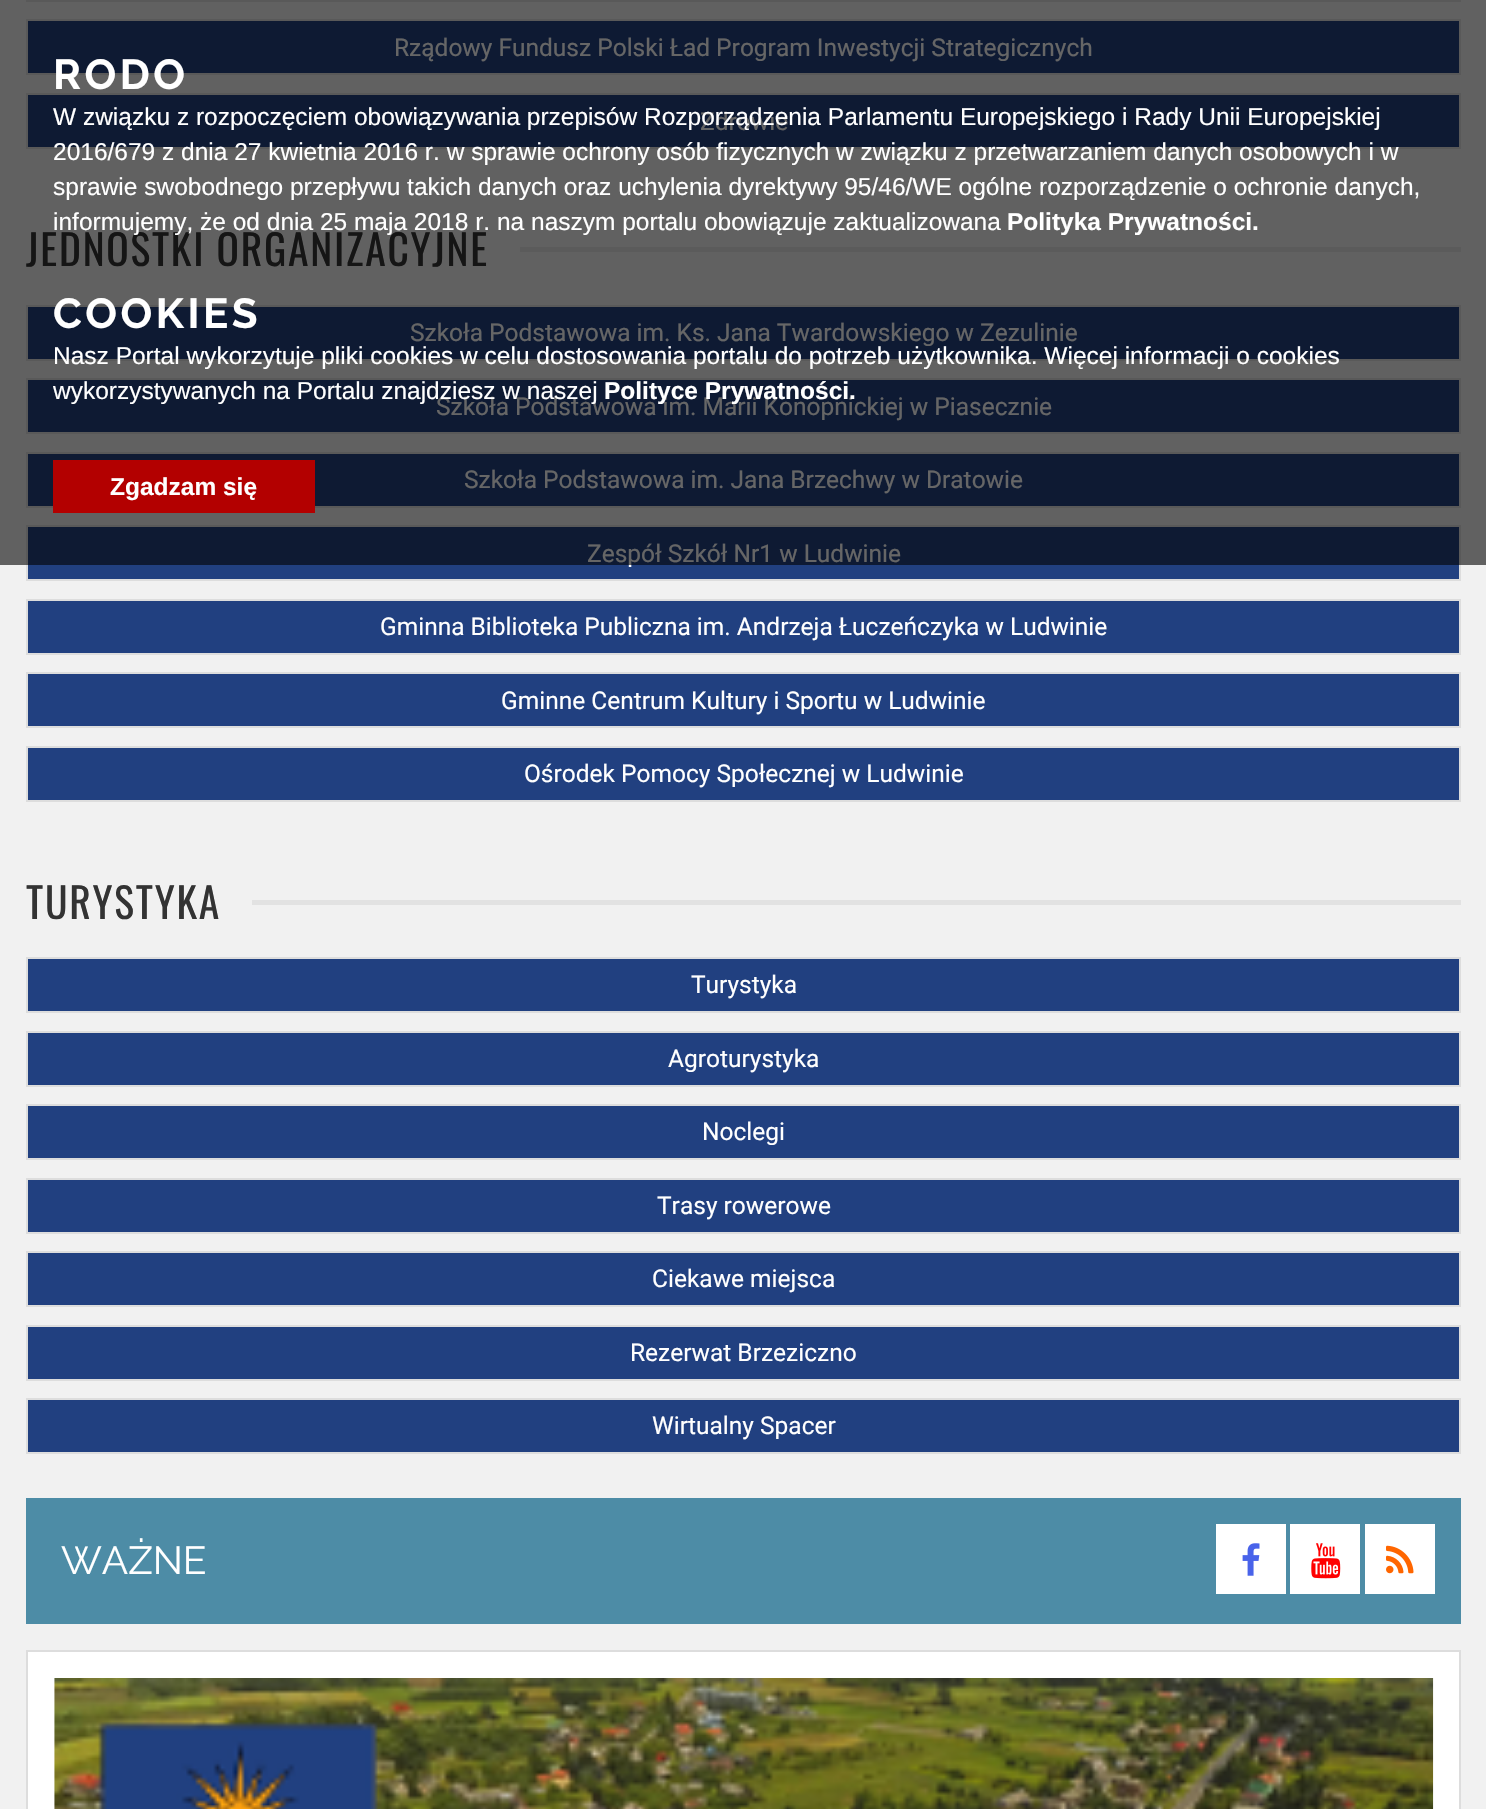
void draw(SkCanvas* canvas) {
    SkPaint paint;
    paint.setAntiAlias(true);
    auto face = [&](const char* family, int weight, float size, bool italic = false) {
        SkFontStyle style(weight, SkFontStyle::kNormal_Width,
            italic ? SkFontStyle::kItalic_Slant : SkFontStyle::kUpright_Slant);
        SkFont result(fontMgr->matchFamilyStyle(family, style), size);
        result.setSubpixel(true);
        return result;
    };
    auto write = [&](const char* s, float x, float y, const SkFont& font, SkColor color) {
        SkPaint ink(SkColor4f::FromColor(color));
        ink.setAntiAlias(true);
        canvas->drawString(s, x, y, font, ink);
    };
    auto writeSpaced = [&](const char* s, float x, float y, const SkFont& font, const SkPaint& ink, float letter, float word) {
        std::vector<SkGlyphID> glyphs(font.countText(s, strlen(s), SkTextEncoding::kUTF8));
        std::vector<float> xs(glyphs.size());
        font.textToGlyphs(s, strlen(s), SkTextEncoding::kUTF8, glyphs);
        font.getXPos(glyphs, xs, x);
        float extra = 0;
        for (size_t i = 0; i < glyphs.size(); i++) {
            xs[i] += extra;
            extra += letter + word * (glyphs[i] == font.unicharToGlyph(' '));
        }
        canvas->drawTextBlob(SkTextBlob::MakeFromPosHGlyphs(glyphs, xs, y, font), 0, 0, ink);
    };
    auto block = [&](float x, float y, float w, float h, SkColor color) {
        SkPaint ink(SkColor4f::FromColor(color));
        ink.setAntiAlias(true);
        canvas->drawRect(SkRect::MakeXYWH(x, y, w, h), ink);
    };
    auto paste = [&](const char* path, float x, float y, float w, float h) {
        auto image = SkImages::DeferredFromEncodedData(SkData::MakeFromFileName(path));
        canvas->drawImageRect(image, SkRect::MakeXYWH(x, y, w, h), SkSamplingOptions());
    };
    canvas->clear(SkColorSetRGB(241, 241, 241));
    paint.setStyle(SkPaint::kStroke_Style);
    paint.setStrokeWidth(2);
    paint.setColor(SkColorSetRGB(221, 221, 221));
    canvas->drawRect(SkRect::MakeXYWH(27, -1, 1433, 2), paint);
    paint.setStyle(SkPaint::kFill_Style);
    paint.setColor(SkColorSetRGB(33, 64, 128));
    canvas->drawRect(SkRect::MakeXYWH(27, 20, 1433, 54), paint);
    paint.setStyle(SkPaint::kStroke_Style);
    paint.setColor(SkColorSetRGB(221, 221, 221));
    canvas->drawRect(SkRect::MakeXYWH(27, 20, 1433, 54), paint);
    auto kFont1 = face("Roboto", 400, 24.5f);
    write("Rządowy Fundusz Polski Ład Program Inwestycji Strategicznych", 394, 56, kFont1, SK_ColorWHITE);
    paint.setStyle(SkPaint::kFill_Style);
    paint.setColor(SkColorSetRGB(33, 64, 128));
    canvas->drawRect(SkRect::MakeXYWH(27, 94, 1433, 54), paint);
    paint.setStyle(SkPaint::kStroke_Style);
    paint.setColor(SkColorSetRGB(221, 221, 221));
    canvas->drawRect(SkRect::MakeXYWH(27, 94, 1433, 54), paint);
    write("Zdrowie", 700, 130, kFont1, SK_ColorWHITE);
    auto kFont2 = face("Oswald", 400, 41.6f);
    paint.setStyle(SkPaint::kFill_Style);
    paint.setColor(SkColorSetRGB(51, 51, 51));
    writeSpaced("JEDNOSTKI ORGANIZACYJNE", 26, 266, kFont2, paint, 1.75f, 0);
    block(520, 247, 941, 5, SkColorSetRGB(226, 226, 226));
    paint.setColor(SkColorSetRGB(33, 64, 128));
    canvas->drawRect(SkRect::MakeXYWH(27, 306, 1433, 54), paint);
    paint.setStyle(SkPaint::kStroke_Style);
    paint.setColor(SkColorSetRGB(221, 221, 221));
    canvas->drawRect(SkRect::MakeXYWH(27, 306, 1433, 54), paint);
    write("Szkoła Podstawowa im. Ks. Jana Twardowskiego w Zezulinie", 410, 341, kFont1, SK_ColorWHITE);
    paint.setStyle(SkPaint::kFill_Style);
    paint.setColor(SkColorSetRGB(33, 64, 128));
    canvas->drawRect(SkRect::MakeXYWH(27, 379, 1433, 54), paint);
    paint.setStyle(SkPaint::kStroke_Style);
    paint.setColor(SkColorSetRGB(221, 221, 221));
    canvas->drawRect(SkRect::MakeXYWH(27, 379, 1433, 54), paint);
    write("Szkoła Podstawowa im. Marii Konopnickiej w Piasecznie", 436, 415, kFont1, SK_ColorWHITE);
    paint.setStyle(SkPaint::kFill_Style);
    paint.setColor(SkColorSetRGB(33, 64, 128));
    canvas->drawRect(SkRect::MakeXYWH(27, 453, 1433, 54), paint);
    paint.setStyle(SkPaint::kStroke_Style);
    paint.setColor(SkColorSetRGB(221, 221, 221));
    canvas->drawRect(SkRect::MakeXYWH(27, 453, 1433, 54), paint);
    write("Szkoła Podstawowa im. Jana Brzechwy w Dratowie", 464, 488, kFont1, SK_ColorWHITE);
    paint.setStyle(SkPaint::kFill_Style);
    paint.setColor(SkColorSetRGB(33, 64, 128));
    canvas->drawRect(SkRect::MakeXYWH(27, 526, 1433, 54), paint);
    paint.setStyle(SkPaint::kStroke_Style);
    paint.setColor(SkColorSetRGB(221, 221, 221));
    canvas->drawRect(SkRect::MakeXYWH(27, 526, 1433, 54), paint);
    write("Zespół Szkół Nr1 w Ludwinie", 587, 562, kFont1, SK_ColorWHITE);
    paint.setStyle(SkPaint::kFill_Style);
    paint.setColor(SkColorSetRGB(33, 64, 128));
    canvas->drawRect(SkRect::MakeXYWH(27, 600, 1433, 54), paint);
    paint.setStyle(SkPaint::kStroke_Style);
    paint.setColor(SkColorSetRGB(221, 221, 221));
    canvas->drawRect(SkRect::MakeXYWH(27, 600, 1433, 54), paint);
    write("Gminna Biblioteka Publiczna im. Andrzeja Łuczeńczyka w Ludwinie", 380, 635, kFont1, SK_ColorWHITE);
    paint.setStyle(SkPaint::kFill_Style);
    paint.setColor(SkColorSetRGB(33, 64, 128));
    canvas->drawRect(SkRect::MakeXYWH(27, 673, 1433, 54), paint);
    paint.setStyle(SkPaint::kStroke_Style);
    paint.setColor(SkColorSetRGB(221, 221, 221));
    canvas->drawRect(SkRect::MakeXYWH(27, 673, 1433, 54), paint);
    write("Gminne Centrum Kultury i Sportu w Ludwinie", 501, 709, kFont1, SK_ColorWHITE);
    paint.setStyle(SkPaint::kFill_Style);
    paint.setColor(SkColorSetRGB(33, 64, 128));
    canvas->drawRect(SkRect::MakeXYWH(27, 747, 1433, 54), paint);
    paint.setStyle(SkPaint::kStroke_Style);
    paint.setColor(SkColorSetRGB(221, 221, 221));
    canvas->drawRect(SkRect::MakeXYWH(27, 747, 1433, 54), paint);
    write("Ośrodek Pomocy Społecznej w Ludwinie", 524, 782, kFont1, SK_ColorWHITE);
    paint.setStyle(SkPaint::kFill_Style);
    paint.setColor(SkColorSetRGB(51, 51, 51));
    writeSpaced("TURYSTYKA", 26, 919, kFont2, paint, 1.75f, 0);
    block(252, 900, 1209, 5, SkColorSetRGB(226, 226, 226));
    paint.setColor(SkColorSetRGB(33, 64, 128));
    canvas->drawRect(SkRect::MakeXYWH(27, 958, 1433, 54), paint);
    paint.setStyle(SkPaint::kStroke_Style);
    paint.setColor(SkColorSetRGB(221, 221, 221));
    canvas->drawRect(SkRect::MakeXYWH(27, 958, 1433, 54), paint);
    write("Turystyka", 691, 993, kFont1, SK_ColorWHITE);
    paint.setStyle(SkPaint::kFill_Style);
    paint.setColor(SkColorSetRGB(33, 64, 128));
    canvas->drawRect(SkRect::MakeXYWH(27, 1032, 1433, 54), paint);
    paint.setStyle(SkPaint::kStroke_Style);
    paint.setColor(SkColorSetRGB(221, 221, 221));
    canvas->drawRect(SkRect::MakeXYWH(27, 1032, 1433, 54), paint);
    write("Agroturystyka", 668, 1067, kFont1, SK_ColorWHITE);
    paint.setStyle(SkPaint::kFill_Style);
    paint.setColor(SkColorSetRGB(33, 64, 128));
    canvas->drawRect(SkRect::MakeXYWH(27, 1105, 1433, 54), paint);
    paint.setStyle(SkPaint::kStroke_Style);
    paint.setColor(SkColorSetRGB(221, 221, 221));
    canvas->drawRect(SkRect::MakeXYWH(27, 1105, 1433, 54), paint);
    write("Noclegi", 702, 1140, kFont1, SK_ColorWHITE);
    paint.setStyle(SkPaint::kFill_Style);
    paint.setColor(SkColorSetRGB(33, 64, 128));
    canvas->drawRect(SkRect::MakeXYWH(27, 1179, 1433, 54), paint);
    paint.setStyle(SkPaint::kStroke_Style);
    paint.setColor(SkColorSetRGB(221, 221, 221));
    canvas->drawRect(SkRect::MakeXYWH(27, 1179, 1433, 54), paint);
    write("Trasy rowerowe", 657, 1214, kFont1, SK_ColorWHITE);
    paint.setStyle(SkPaint::kFill_Style);
    paint.setColor(SkColorSetRGB(33, 64, 128));
    canvas->drawRect(SkRect::MakeXYWH(27, 1252, 1433, 54), paint);
    paint.setStyle(SkPaint::kStroke_Style);
    paint.setColor(SkColorSetRGB(221, 221, 221));
    canvas->drawRect(SkRect::MakeXYWH(27, 1252, 1433, 54), paint);
    write("Ciekawe miejsca", 652, 1287, kFont1, SK_ColorWHITE);
    paint.setStyle(SkPaint::kFill_Style);
    paint.setColor(SkColorSetRGB(33, 64, 128));
    canvas->drawRect(SkRect::MakeXYWH(27, 1326, 1433, 54), paint);
    paint.setStyle(SkPaint::kStroke_Style);
    paint.setColor(SkColorSetRGB(221, 221, 221));
    canvas->drawRect(SkRect::MakeXYWH(27, 1326, 1433, 54), paint);
    write("Rezerwat Brzeziczno", 630, 1361, kFont1, SK_ColorWHITE);
    paint.setStyle(SkPaint::kFill_Style);
    paint.setColor(SkColorSetRGB(33, 64, 128));
    canvas->drawRect(SkRect::MakeXYWH(27, 1399, 1433, 54), paint);
    paint.setStyle(SkPaint::kStroke_Style);
    paint.setColor(SkColorSetRGB(221, 221, 221));
    canvas->drawRect(SkRect::MakeXYWH(27, 1399, 1433, 54), paint);
    write("Wirtualny Spacer", 652, 1434, kFont1, SK_ColorWHITE);
    block(26, 1498, 1435, 126, SkColorSetRGB(77, 140, 166));
    auto kFont3 = face("Raleway", 400, 39);
    write("WAŻNE", 61, 1574, kFont3, SK_ColorWHITE);
    block(1216, 1524, 70, 70, SK_ColorWHITE);
    paste("pic1.png", 1242, 1543, 18, 33);
    block(1290, 1524, 70, 70, SK_ColorWHITE);
    paste("pic2.png", 1311, 1543, 30, 36);
    block(1365, 1524, 70, 70, SK_ColorWHITE);
    paste("pic3.png", 1386, 1545, 28, 29);
    paint.setStyle(SkPaint::kFill_Style);
    paint.setColor(SK_ColorWHITE);
    canvas->drawRect(SkRect::MakeXYWH(27, 1651, 1433, 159), paint);
    paint.setStyle(SkPaint::kStroke_Style);
    paint.setColor(SkColorSetRGB(221, 221, 221));
    canvas->drawRect(SkRect::MakeXYWH(27, 1651, 1433, 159), paint);
    paste("pic4.png", 54, 1678, 1380, 131);
    block(0, 0, 1486, 565, SkColorSetARGB(153, 0, 0, 0));
    auto kFont4 = face("Raleway", 700, 42);
    paint.setStyle(SkPaint::kFill_Style);
    paint.setColor(SK_ColorWHITE);
    writeSpaced("RODO", 53, 89, kFont4, paint, 3.5f, 0);
    auto kFont5 = face("Liberation Sans", 400, 24.5f);
    write("W związku z rozpoczęciem obowiązywania przepisów Rozporządzenia Parlamentu Europejskiego i Rady Unii Europejskiej", 53, 125, kFont5, SK_ColorWHITE);
    write("2016/679 z dnia 27 kwietnia 2016 r. w sprawie ochrony osób fizycznych w związku z przetwarzaniem danych osobowych i w", 53, 160, kFont5, SK_ColorWHITE);
    write("sprawie swobodnego przepływu takich danych oraz uchylenia dyrektywy 95/46/WE ogólne rozporządzenie o ochronie danych,", 53, 195, kFont5, SK_ColorWHITE);
    write("informujemy, że od dnia 25 maja 2018 r. na naszym portalu obowiązuje zaktualizowana", 53, 230, kFont5, SK_ColorWHITE);
    auto kFont6 = face("Liberation Sans", 700, 24.5f);
    write("Polityka Prywatności.", 1007, 230, kFont6, SK_ColorWHITE);
    writeSpaced("COOKIES", 53, 328, kFont4, paint, 3.5f, 0);
    write("Nasz Portal wykorzytuje pliki cookies w celu dostosowania portalu do potrzeb użytkownika. Więcej informacji o cookies", 53, 364, kFont5, SK_ColorWHITE);
    write("wykorzystywanych na Portalu znajdziesz w naszej", 53, 399, kFont5, SK_ColorWHITE);
    write("Polityce Prywatności.", 604, 399, kFont6, SK_ColorWHITE);
    block(53, 460, 262, 53, SkColorSetRGB(179, 0, 0));
    write("Zgadzam się", 110, 495, kFont6, SK_ColorWHITE);
}
